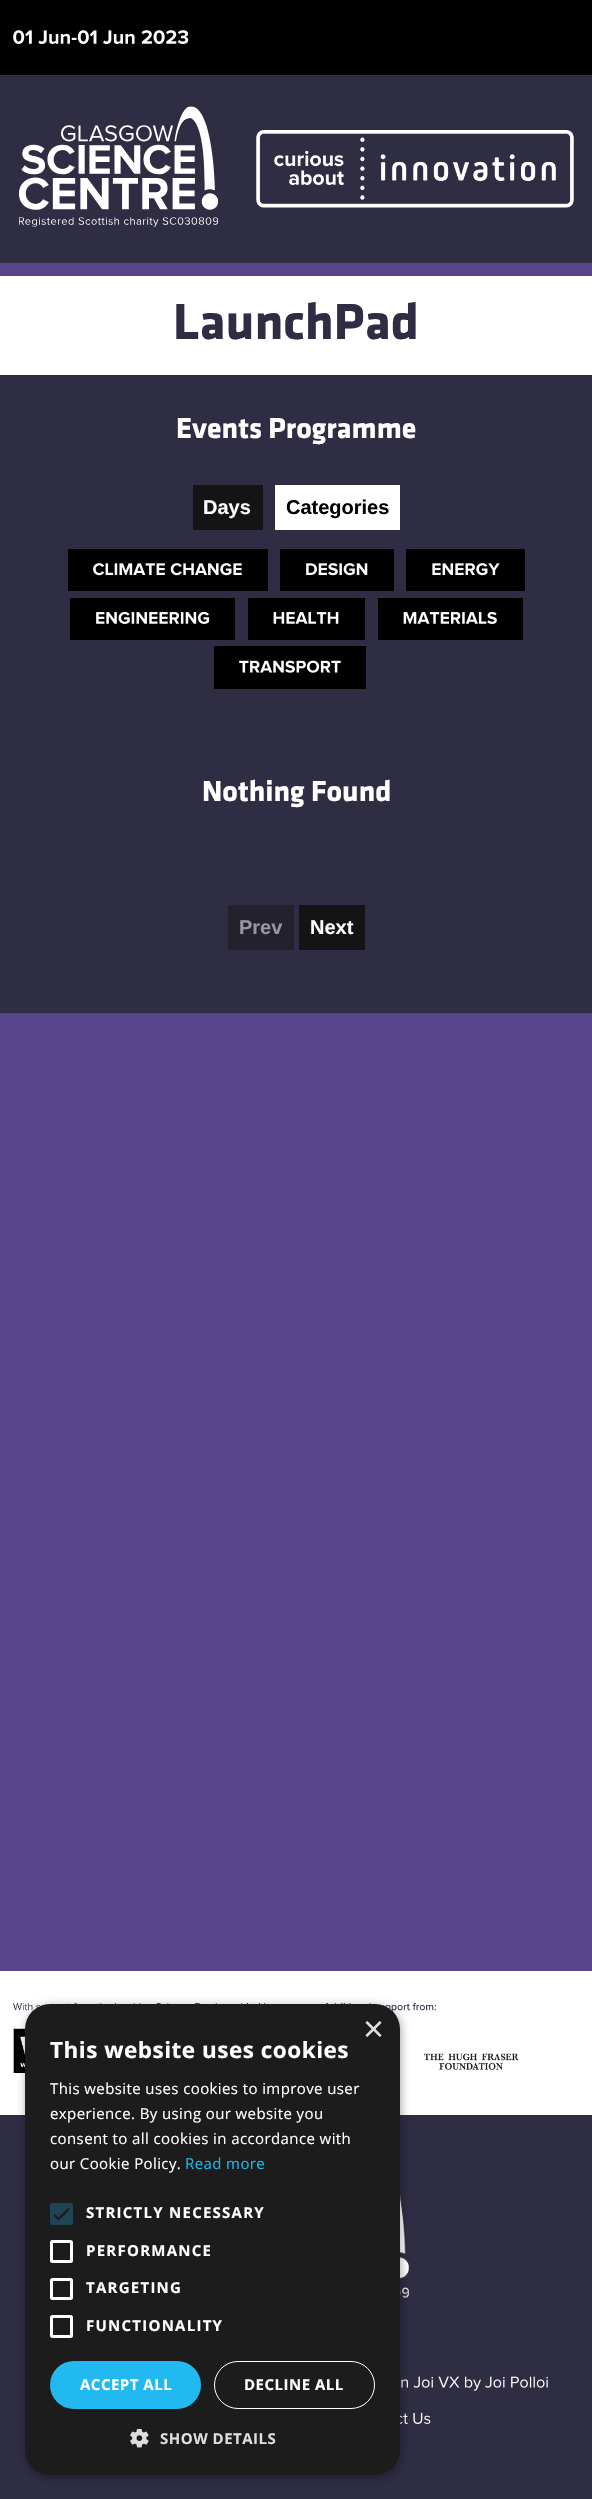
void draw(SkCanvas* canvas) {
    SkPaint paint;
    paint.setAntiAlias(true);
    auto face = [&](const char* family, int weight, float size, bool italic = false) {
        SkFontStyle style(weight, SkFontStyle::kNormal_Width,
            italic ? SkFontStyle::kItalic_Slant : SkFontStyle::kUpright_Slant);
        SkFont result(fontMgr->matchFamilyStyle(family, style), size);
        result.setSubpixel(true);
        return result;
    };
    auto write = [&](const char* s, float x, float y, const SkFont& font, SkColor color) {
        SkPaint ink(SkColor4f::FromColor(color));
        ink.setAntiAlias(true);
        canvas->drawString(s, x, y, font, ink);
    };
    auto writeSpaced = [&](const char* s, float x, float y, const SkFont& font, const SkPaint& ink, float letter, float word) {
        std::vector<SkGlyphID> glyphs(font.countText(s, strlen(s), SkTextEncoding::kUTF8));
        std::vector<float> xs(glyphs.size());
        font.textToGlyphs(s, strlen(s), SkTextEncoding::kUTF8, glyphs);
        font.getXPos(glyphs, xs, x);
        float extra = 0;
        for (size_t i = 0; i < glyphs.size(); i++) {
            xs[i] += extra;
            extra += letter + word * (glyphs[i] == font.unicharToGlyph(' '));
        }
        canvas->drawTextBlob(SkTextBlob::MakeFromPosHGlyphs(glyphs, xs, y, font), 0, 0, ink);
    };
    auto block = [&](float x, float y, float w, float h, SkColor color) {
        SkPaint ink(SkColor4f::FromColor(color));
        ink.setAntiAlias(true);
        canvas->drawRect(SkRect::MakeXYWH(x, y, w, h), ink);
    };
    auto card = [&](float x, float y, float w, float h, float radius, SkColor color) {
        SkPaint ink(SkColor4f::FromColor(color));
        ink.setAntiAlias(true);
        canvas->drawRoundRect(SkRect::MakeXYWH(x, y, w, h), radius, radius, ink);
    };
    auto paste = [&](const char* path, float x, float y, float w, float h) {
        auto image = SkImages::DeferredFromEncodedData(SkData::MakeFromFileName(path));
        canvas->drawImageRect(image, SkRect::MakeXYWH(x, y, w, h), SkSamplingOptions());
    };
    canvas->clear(SkColorSetRGB(88, 68, 138));
    block(0, 0, 592, 75, SK_ColorBLACK);
    paste("pic1.png", 13, 30, 176, 14);
    block(0, 75, 592, 938, SkColorSetRGB(47, 45, 68));
    paste("pic2.png", 19, 106, 200, 121);
    paste("pic3.png", 256, 130, 318, 78);
    block(0, 276, 592, 99, SK_ColorWHITE);
    block(0, 263, 592, 13, SkColorSetRGB(88, 68, 138));
    auto kFont1 = face("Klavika", 700, 52.5f);
    write("LaunchPad", 173, 339, kFont1, SkColorSetRGB(47, 45, 68));
    auto kFont2 = face("Klavika", 700, 30);
    write("Events Programme", 176, 438, kFont2, SK_ColorWHITE);
    block(193, 485, 70, 45, SkColorSetRGB(20, 20, 20));
    auto kFont3 = face("Liberation Sans", 700, 20);
    write("Days", 203, 514, kFont3, SK_ColorWHITE);
    block(275, 485, 125, 45, SK_ColorWHITE);
    write("Categories", 286, 514, kFont3, SK_ColorBLACK);
    block(68, 549, 200, 42, SK_ColorBLACK);
    paste("pic4.png", 93, 563, 149, 13);
    block(280, 549, 114, 42, SK_ColorBLACK);
    paste("pic5.png", 306, 563, 62, 13);
    block(406, 549, 119, 42, SK_ColorBLACK);
    paste("pic6.png", 432, 563, 68, 13);
    block(70, 598, 165, 42, SK_ColorBLACK);
    paste("pic7.png", 96, 611, 114, 13);
    block(248, 598, 117, 42, SK_ColorBLACK);
    paste("pic8.png", 273, 612, 66, 12);
    block(378, 598, 145, 42, SK_ColorBLACK);
    paste("pic9.png", 403, 611, 94, 13);
    block(214, 646, 152, 43, SK_ColorBLACK);
    paste("pic10.png", 239, 660, 102, 13);
    write("Nothing Found", 202, 801, kFont2, SK_ColorWHITE);
    block(228, 905, 66, 45, SkColorSetRGB(34, 33, 44));
    write("Prev", 239, 934, kFont3, SkColorSetRGB(151, 150, 162));
    block(299, 905, 66, 45, SkColorSetRGB(20, 20, 20));
    write("Next", 310, 934, kFont3, SK_ColorWHITE);
    block(0, 2115, 592, 384, SkColorSetRGB(47, 45, 68));
    block(0, 1971, 592, 144, SK_ColorWHITE);
    paste("pic11.png", 13, 2002, 506, 73);
    paste("pic12.png", 400, 2194, 9, 104);
    paste("pic13.png", 401, 2376, 80, 15);
    paste("pic14.png", 485, 2376, 63, 12);
    paste("pic15.png", 400, 2412, 31, 12);
    paint.setColor(SkColorSetARGB(89, 0, 0, 0));
    paint.setMaskFilter(SkMaskFilter::MakeBlur(kNormal_SkBlurStyle, 5));
    canvas->drawRoundRect(SkRect::MakeXYWH(26, 2006, 375, 472), 25, 25, paint);
    paint.setMaskFilter(nullptr);
    card(25, 2004, 375, 471, 25, SkColorSetRGB(28, 28, 28));
    auto kFont4 = face("Liberation Sans", 400, 36);
    write("×", 363, 2041, kFont4, SkColorSetRGB(221, 221, 221));
    auto kFont5 = face("Open Sans", 700, 22.5f);
    paint.setColor(SK_ColorWHITE);
    writeSpaced("This website uses cookies", 50, 2058, kFont5, paint, 0.5f, 0);
    auto kFont6 = face("Open Sans", 400, 15);
    writeSpaced("This website uses cookies to improve user", 50, 2094, kFont6, paint, 0.4f, 0);
    writeSpaced("experience. By using our website you", 50, 2119, kFont6, paint, 0.4f, 0);
    writeSpaced("consent to all cookies in accordance with", 50, 2144, kFont6, paint, 0.4f, 0);
    writeSpaced("our Cookie Policy.", 50, 2169, kFont6, paint, 0.4f, 0);
    paint.setColor(SkColorSetRGB(34, 184, 240));
    writeSpaced("Read more", 185, 2169, kFont6, paint, 0.4f, 0);
    card(50, 2203, 23, 22, 2.5f, SkColorSetRGB(30, 69, 83));
    paint.setStyle(SkPaint::kStroke_Style);
    paint.setStrokeWidth(2.3f);
    paint.setColor(SkColorSetRGB(28, 28, 28));
    canvas->drawPath(SkPathBuilder().moveTo(54, 2214.5f).lineTo(58.5f, 2219).lineTo(69, 2208.5f).detach(), paint);
    auto kFont7 = face("Open Sans", 700, 15);
    paint.setStyle(SkPaint::kFill_Style);
    paint.setColor(SK_ColorWHITE);
    writeSpaced("STRICTLY NECESSARY", 86, 2218, kFont7, paint, 1.25f, 0);
    paint.setStyle(SkPaint::kStroke_Style);
    paint.setStrokeWidth(3);
    canvas->drawRoundRect(SkRect::MakeXYWH(51.5f, 2241.5f, 20, 20), 1, 1, paint);
    paint.setStyle(SkPaint::kFill_Style);
    writeSpaced("PERFORMANCE", 86, 2256, kFont7, paint, 1.25f, 0);
    paint.setStyle(SkPaint::kStroke_Style);
    canvas->drawRoundRect(SkRect::MakeXYWH(51.5f, 2279.5f, 20, 19), 1, 1, paint);
    paint.setStyle(SkPaint::kFill_Style);
    writeSpaced("TARGETING", 86, 2293, kFont7, paint, 1.25f, 0);
    paint.setStyle(SkPaint::kStroke_Style);
    canvas->drawRoundRect(SkRect::MakeXYWH(51.5f, 2316.5f, 20, 20), 1, 1, paint);
    paint.setStyle(SkPaint::kFill_Style);
    writeSpaced("FUNCTIONALITY", 86, 2331, kFont7, paint, 1.25f, 0);
    card(50, 2361, 151, 48, 24, SkColorSetRGB(34, 184, 240));
    writeSpaced("ACCEPT ALL", 80, 2390, kFont7, paint, 0.5f, 0);
    paint.setStyle(SkPaint::kStroke_Style);
    paint.setStrokeWidth(1);
    canvas->drawRoundRect(SkRect::MakeXYWH(214.5f, 2361.5f, 160, 47), 23.5f, 23.5f, paint);
    paint.setStyle(SkPaint::kFill_Style);
    writeSpaced("DECLINE ALL", 244, 2390, kFont7, paint, 0.5f, 0);
    paste("pic16.png", 130, 2429, 19, 19);
    paint.setColor(SkColorSetRGB(221, 221, 221));
    writeSpaced("SHOW DETAILS", 160, 2444, kFont7, paint, 0.5f, 0);
}
